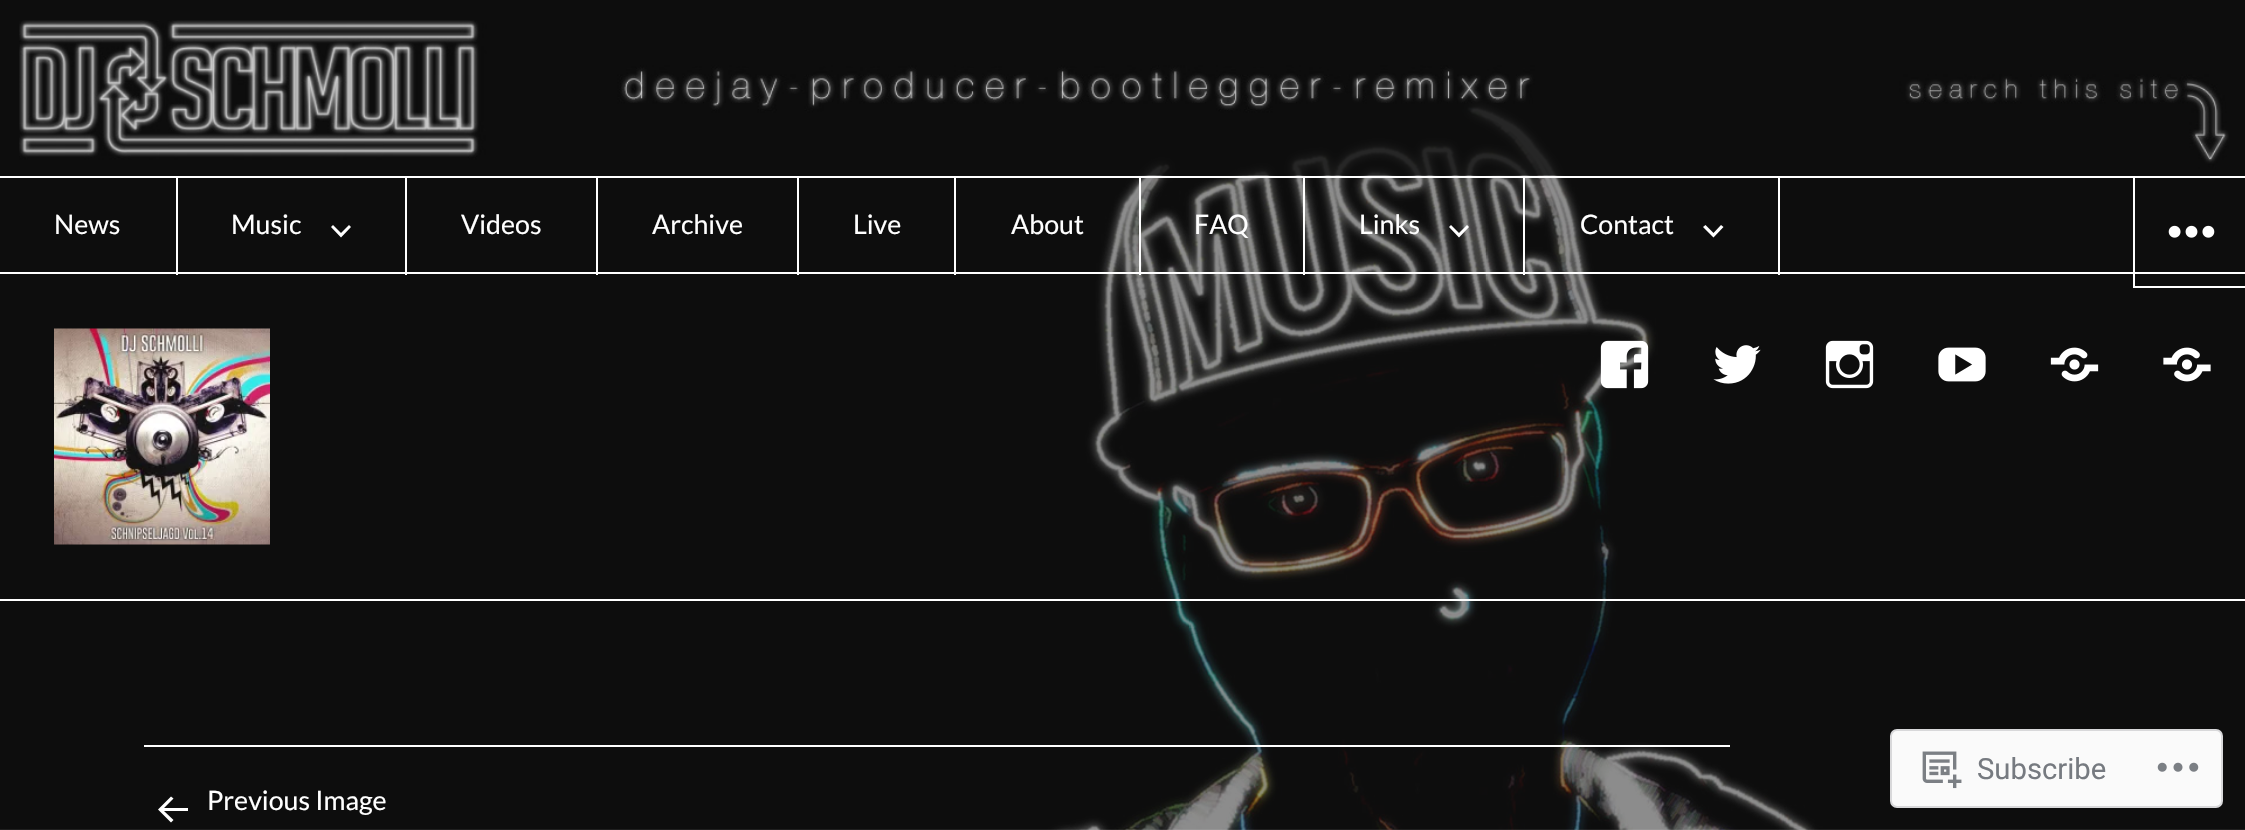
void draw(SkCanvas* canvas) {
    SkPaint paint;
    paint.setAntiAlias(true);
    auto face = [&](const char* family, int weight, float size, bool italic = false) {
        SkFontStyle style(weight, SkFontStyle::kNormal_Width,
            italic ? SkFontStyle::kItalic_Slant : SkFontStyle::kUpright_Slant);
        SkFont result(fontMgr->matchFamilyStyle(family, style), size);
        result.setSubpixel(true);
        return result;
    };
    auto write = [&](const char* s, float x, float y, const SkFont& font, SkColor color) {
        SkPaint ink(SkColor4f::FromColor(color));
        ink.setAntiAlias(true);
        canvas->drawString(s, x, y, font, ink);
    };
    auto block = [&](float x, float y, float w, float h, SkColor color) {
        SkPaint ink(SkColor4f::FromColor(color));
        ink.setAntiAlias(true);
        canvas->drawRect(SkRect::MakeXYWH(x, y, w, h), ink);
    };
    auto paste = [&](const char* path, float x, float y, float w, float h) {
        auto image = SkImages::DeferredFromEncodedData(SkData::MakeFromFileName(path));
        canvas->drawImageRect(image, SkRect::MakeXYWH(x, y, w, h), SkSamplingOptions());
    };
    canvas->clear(SK_ColorWHITE);
    paste("pic1.png", 0, 0, 2245, 830);
    block(0, 176, 2245, 2, SK_ColorWHITE);
    paste("pic2.png", 19, 20, 2210, 156);
    block(0, 599, 2245, 2, SK_ColorWHITE);
    block(0, 272, 2245, 2, SK_ColorWHITE);
    block(176, 176, 2, 99, SK_ColorWHITE);
    auto kFont1 = face("Lato", 400, 26.75f);
    write("News", 54, 234, kFont1, SK_ColorWHITE);
    block(405, 176, 2, 99, SK_ColorWHITE);
    write("Music", 231, 234, kFont1, SK_ColorWHITE);
    paint.setColor(SK_ColorWHITE);
    canvas->drawPath(SkPathBuilder().moveTo(349, 225).lineTo(351, 227).lineTo(341, 237.5f).lineTo(331, 227).lineTo(333, 225).lineTo(341, 233).close().detach(), paint);
    block(596, 176, 2, 99, SK_ColorWHITE);
    write("Videos", 461, 234, kFont1, SK_ColorWHITE);
    block(797, 176, 2, 99, SK_ColorWHITE);
    write("Archive", 652, 234, kFont1, SK_ColorWHITE);
    block(954, 176, 2, 99, SK_ColorWHITE);
    write("Live", 853, 234, kFont1, SK_ColorWHITE);
    block(1139, 176, 2, 99, SK_ColorWHITE);
    write("About", 1011, 234, kFont1, SK_ColorWHITE);
    block(1303, 176, 2, 99, SK_ColorWHITE);
    write("FAQ", 1194, 234, kFont1, SK_ColorWHITE);
    block(1523, 176, 2, 99, SK_ColorWHITE);
    write("Links", 1359, 234, kFont1, SK_ColorWHITE);
    canvas->drawPath(SkPathBuilder().moveTo(1467, 225).lineTo(1469, 227).lineTo(1459, 237.5f).lineTo(1449, 227).lineTo(1451, 225).lineTo(1459, 233).close().detach(), paint);
    block(1778, 176, 2, 99, SK_ColorWHITE);
    write("Contact", 1580, 234, kFont1, SK_ColorWHITE);
    canvas->drawPath(SkPathBuilder().moveTo(1721, 225).lineTo(1723.5f, 227).lineTo(1713.5f, 237.5f).lineTo(1703, 227).lineTo(1705.5f, 225).lineTo(1713.5f, 233).close().detach(), paint);
    block(2133, 286, 112, 2, SK_ColorWHITE);
    block(2133, 176, 2, 112, SK_ColorWHITE);
    paste("pic3.png", 2168, 225, 47, 13);
    paste("pic4.png", 54, 328, 216, 217);
    paste("pic5.png", 1600, 340, 49, 49);
    paste("pic6.png", 1713, 345, 48, 39);
    paste("pic7.png", 1825, 340, 49, 49);
    paste("pic8.png", 1938, 347, 48, 35);
    paste("pic9.png", 2050, 347, 49, 35);
    paste("pic10.png", 2163, 347, 48, 35);
    block(144, 745, 1586, 2, SK_ColorWHITE);
    canvas->drawPath(SkPathBuilder().moveTo(171, 796.5f).lineTo(173.5f, 798.5f).lineTo(164, 808).lineTo(188, 808).lineTo(188, 811).lineTo(164, 811).lineTo(173.5f, 820).lineTo(171, 822.5f).lineTo(158, 809.5f).close().detach(), paint);
    write("Previous Image", 207, 810, kFont1, SK_ColorWHITE);
    paint.setColor(SkColorSetRGB(250, 250, 250));
    canvas->drawRoundRect(SkRect::MakeXYWH(1891, 730, 331, 77), 6, 6, paint);
    paint.setStyle(SkPaint::kStroke_Style);
    paint.setStrokeWidth(2);
    paint.setColor(SkColorSetRGB(216, 216, 218));
    canvas->drawRoundRect(SkRect::MakeXYWH(1891, 730, 331, 77), 6, 6, paint);
    paste("pic11.png", 1922, 751, 40, 38);
    auto kFont2 = face("Roboto", 400, 29.25f);
    write("Subscribe", 1977, 779, kFont2, SkColorSetRGB(118, 122, 128));
    paste("pic12.png", 2157, 762, 42, 10);
}
